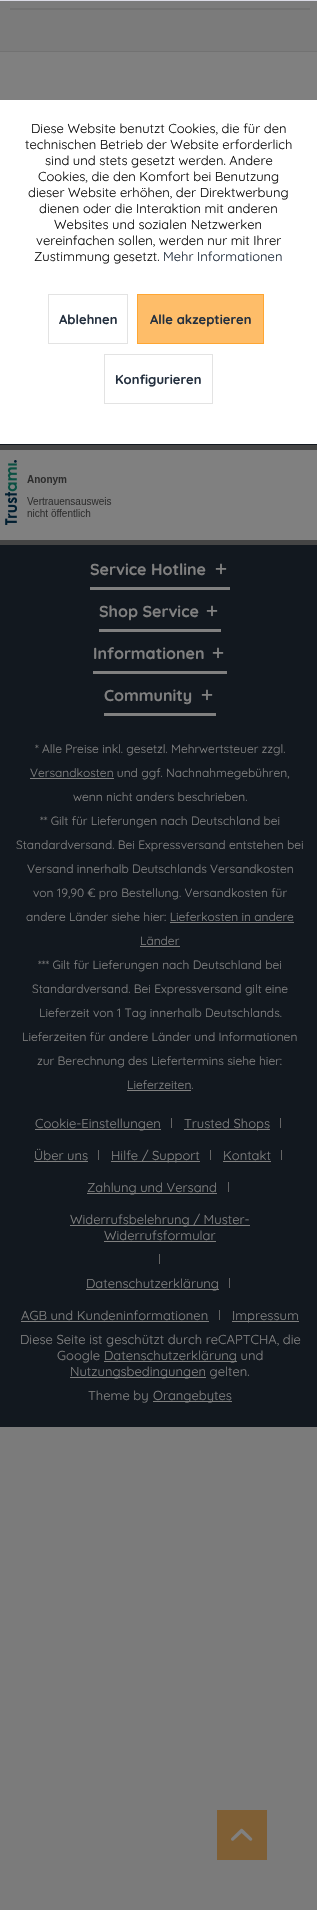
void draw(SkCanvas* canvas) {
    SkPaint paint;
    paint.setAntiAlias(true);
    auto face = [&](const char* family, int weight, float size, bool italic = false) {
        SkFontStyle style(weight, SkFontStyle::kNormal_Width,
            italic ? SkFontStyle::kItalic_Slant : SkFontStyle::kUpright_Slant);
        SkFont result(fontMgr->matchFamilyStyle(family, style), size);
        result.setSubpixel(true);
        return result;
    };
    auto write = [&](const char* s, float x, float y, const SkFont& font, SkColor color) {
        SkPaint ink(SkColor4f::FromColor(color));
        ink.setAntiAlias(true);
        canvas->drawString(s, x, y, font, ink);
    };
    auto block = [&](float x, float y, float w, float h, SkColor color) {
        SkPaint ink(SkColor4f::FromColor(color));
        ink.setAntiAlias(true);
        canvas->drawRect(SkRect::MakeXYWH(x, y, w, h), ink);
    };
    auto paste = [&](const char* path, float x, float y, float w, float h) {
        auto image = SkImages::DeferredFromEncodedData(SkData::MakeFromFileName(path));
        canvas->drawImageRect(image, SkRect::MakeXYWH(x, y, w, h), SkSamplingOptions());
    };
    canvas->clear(SkColorSetRGB(123, 123, 123));
    block(0, 0, 317, 1, SkColorSetRGB(218, 218, 229));
    block(0, 100, 317, 344, SK_ColorWHITE);
    auto kFont1 = face("Quicksand", 400, 13);
    write("Diese Website benutzt Cookies, die für den", 31, 133, kFont1, SkColorSetRGB(17, 17, 17));
    write("technischen Betrieb der Website erforderlich", 25, 149, kFont1, SkColorSetRGB(17, 17, 17));
    write("sind und stets gesetzt werden. Andere", 45, 165, kFont1, SkColorSetRGB(17, 17, 17));
    write("Cookies, die den Komfort bei Benutzung", 38, 181, kFont1, SkColorSetRGB(17, 17, 17));
    write("dieser Website erhöhen, der Direktwerbung", 28, 197, kFont1, SkColorSetRGB(17, 17, 17));
    write("dienen oder die Interaktion mit anderen", 39, 213, kFont1, SkColorSetRGB(17, 17, 17));
    write("Websites und sozialen Netzwerken", 54, 229, kFont1, SkColorSetRGB(17, 17, 17));
    write("vereinfachen sollen, werden nur mit Ihrer", 36, 245, kFont1, SkColorSetRGB(17, 17, 17));
    write("Zustimmung gesetzt.", 34, 261, kFont1, SkColorSetRGB(17, 17, 17));
    write("Mehr Informationen", 163, 261, kFont1, SkColorSetRGB(35, 47, 62));
    paint.setStyle(SkPaint::kStroke_Style);
    paint.setStrokeWidth(1);
    paint.setColor(SkColorSetRGB(227, 227, 227));
    canvas->drawRect(SkRect::MakeXYWH(48.5f, 294.5f, 79, 49), paint);
    auto kFont2 = face("Quicksand", 700, 13);
    write("Ablehnen", 59, 324, kFont2, SkColorSetRGB(35, 47, 62));
    paint.setStyle(SkPaint::kFill_Style);
    paint.setColor(SkColorSetRGB(254, 189, 105));
    canvas->drawRect(SkRect::MakeXYWH(137.5f, 294.5f, 126, 49), paint);
    paint.setStyle(SkPaint::kStroke_Style);
    paint.setColor(SkColorSetRGB(255, 166, 50));
    canvas->drawRect(SkRect::MakeXYWH(137.5f, 294.5f, 126, 49), paint);
    write("Alle akzeptieren", 150, 324, kFont2, SkColorSetRGB(35, 47, 62));
    paint.setColor(SkColorSetRGB(227, 227, 227));
    canvas->drawRect(SkRect::MakeXYWH(104.5f, 354.5f, 108, 49), paint);
    write("Konfigurieren", 115, 384, kFont2, SkColorSetRGB(35, 47, 62));
    block(10, 8, 300, 2, SkColorSetRGB(114, 114, 114));
    block(0, 52, 317, 48, SkColorSetRGB(128, 128, 128));
    block(0, 51, 317, 1, SkColorSetRGB(114, 114, 114));
    block(0, 444, 317, 983, SkColorSetRGB(18, 24, 31));
    paste("pic1.png", 0, 445, 317, 100);
    block(90, 587, 140, 3, SkColorSetRGB(128, 128, 128));
    auto kFont3 = face("Quicksand", 700, 16);
    write("Service Hotline", 90, 575, kFont3, SkColorSetRGB(128, 128, 128));
    paste("pic2.png", 215, 563, 12, 12);
    block(99, 629, 122, 3, SkColorSetRGB(128, 128, 128));
    write("Shop Service", 99, 617, kFont3, SkColorSetRGB(128, 128, 128));
    paste("pic2.png", 206, 605, 12, 12);
    block(93, 671, 134, 3, SkColorSetRGB(128, 128, 128));
    write("Informationen", 93, 659, kFont3, SkColorSetRGB(128, 128, 128));
    paste("pic2.png", 212, 647, 12, 12);
    block(104, 713, 112, 3, SkColorSetRGB(128, 128, 128));
    write("Community", 104, 701, kFont3, SkColorSetRGB(128, 128, 128));
    paste("pic2.png", 201, 689, 12, 12);
    auto kFont4 = face("Quicksand", 400, 12);
    write("* Alle Preise inkl. gesetzl. Mehrwertsteuer zzgl.", 35, 753, kFont4, SkColorSetRGB(128, 128, 128));
    block(30, 778, 84, 1, SkColorSetRGB(128, 128, 128));
    write("Versandkosten und ggf. Nachnahmegebühren,", 30, 777, kFont4, SkColorSetRGB(128, 128, 128));
    write("wenn nicht anders beschrieben.", 73, 801, kFont4, SkColorSetRGB(128, 128, 128));
    write("** Gilt für Lieferungen nach Deutschland bei", 40, 825, kFont4, SkColorSetRGB(128, 128, 128));
    write("Standardversand. Bei Expressversand entstehen bei", 16, 849, kFont4, SkColorSetRGB(128, 128, 128));
    write("Versand innerhalb Deutschlands Versandkosten", 27, 873, kFont4, SkColorSetRGB(128, 128, 128));
    write("von 19,90 € pro Bestellung. Versandkosten für", 33, 897, kFont4, SkColorSetRGB(128, 128, 128));
    write("andere Länder siehe hier: Lieferkosten in andere", 26, 921, kFont4, SkColorSetRGB(128, 128, 128));
    write("Länder", 140, 945, kFont4, SkColorSetRGB(128, 128, 128));
    block(170, 922, 124, 1, SkColorSetRGB(128, 128, 128));
    block(140, 946, 40, 1, SkColorSetRGB(128, 128, 128));
    write("*** Gilt für Lieferungen nach Deutschland bei", 38, 969, kFont4, SkColorSetRGB(128, 128, 128));
    write("Standardversand. Bei Expressversand gilt eine", 32, 993, kFont4, SkColorSetRGB(128, 128, 128));
    write("Lieferzeit von 1 Tag innerhalb Deutschlands.", 39, 1017, kFont4, SkColorSetRGB(128, 128, 128));
    write("Lieferzeiten für andere Länder und Informationen", 22, 1041, kFont4, SkColorSetRGB(128, 128, 128));
    write("zur Berechnung des Liefertermins siehe hier:", 37, 1065, kFont4, SkColorSetRGB(128, 128, 128));
    write("Lieferzeiten.", 127, 1089, kFont4, SkColorSetRGB(128, 128, 128));
    block(127, 1090, 64, 1, SkColorSetRGB(128, 128, 128));
    block(35, 1129, 126, 1, SkColorSetRGB(128, 128, 128));
    write("Cookie-Einstellungen", 35, 1128, kFont1, SkColorSetRGB(128, 128, 128));
    block(171, 1118, 1, 10, SkColorSetRGB(101, 101, 101));
    block(184, 1129, 86, 1, SkColorSetRGB(128, 128, 128));
    write("Trusted Shops", 184, 1128, kFont1, SkColorSetRGB(128, 128, 128));
    block(280, 1118, 1, 10, SkColorSetRGB(101, 101, 101));
    write("Über uns", 34, 1160, kFont1, SkColorSetRGB(128, 128, 128));
    block(34, 1161, 54, 1, SkColorSetRGB(128, 128, 128));
    block(98, 1150, 1, 10, SkColorSetRGB(101, 101, 101));
    block(111, 1161, 89, 1, SkColorSetRGB(128, 128, 128));
    write("Hilfe / Support", 111, 1160, kFont1, SkColorSetRGB(128, 128, 128));
    block(210, 1150, 1, 10, SkColorSetRGB(101, 101, 101));
    write("Kontakt", 223, 1160, kFont1, SkColorSetRGB(128, 128, 128));
    block(223, 1161, 48, 1, SkColorSetRGB(128, 128, 128));
    block(281, 1150, 1, 10, SkColorSetRGB(101, 101, 101));
    block(87, 1193, 130, 1, SkColorSetRGB(128, 128, 128));
    write("Zahlung und Versand", 87, 1192, kFont1, SkColorSetRGB(128, 128, 128));
    block(228, 1182, 1, 10, SkColorSetRGB(101, 101, 101));
    block(70, 1225, 180, 1, SkColorSetRGB(128, 128, 128));
    write("Widerrufsbelehrung / Muster-", 70, 1224, kFont1, SkColorSetRGB(128, 128, 128));
    write("Widerrufsformular", 104, 1240, kFont1, SkColorSetRGB(128, 128, 128));
    block(104, 1241, 112, 1, SkColorSetRGB(128, 128, 128));
    block(159, 1254, 1, 10, SkColorSetRGB(101, 101, 101));
    block(86, 1289, 133, 1, SkColorSetRGB(128, 128, 128));
    write("Datenschutzerklärung", 86, 1288, kFont1, SkColorSetRGB(128, 128, 128));
    block(229, 1278, 1, 10, SkColorSetRGB(101, 101, 101));
    write("AGB und Kundeninformationen", 21, 1320, kFont1, SkColorSetRGB(128, 128, 128));
    block(21, 1321, 188, 1, SkColorSetRGB(128, 128, 128));
    block(219, 1310, 1, 10, SkColorSetRGB(101, 101, 101));
    block(232, 1321, 67, 1, SkColorSetRGB(128, 128, 128));
    write("Impressum", 232, 1320, kFont1, SkColorSetRGB(128, 128, 128));
    write("Diese Seite ist geschützt durch reCAPTCHA, die", 20, 1344, kFont1, SkColorSetRGB(128, 128, 128));
    write("Google", 57, 1360, kFont1, SkColorSetRGB(128, 128, 128));
    block(104, 1361, 133, 1, SkColorSetRGB(128, 128, 128));
    write("Datenschutzerklärung und", 104, 1360, kFont1, SkColorSetRGB(128, 128, 128));
    block(70, 1377, 136, 1, SkColorSetRGB(128, 128, 128));
    write("Nutzungsbedingungen gelten.", 70, 1376, kFont1, SkColorSetRGB(128, 128, 128));
    write("Theme by", 88, 1400, kFont1, SkColorSetRGB(128, 128, 128));
    block(153, 1401, 79, 1, SkColorSetRGB(128, 128, 128));
    write("Orangebytes", 153, 1400, kFont1, SkColorSetRGB(128, 128, 128));
    block(217, 1810, 50, 50, SkColorSetRGB(127, 95, 53));
    paste("pic3.png", 231, 1828, 22, 13);
}
